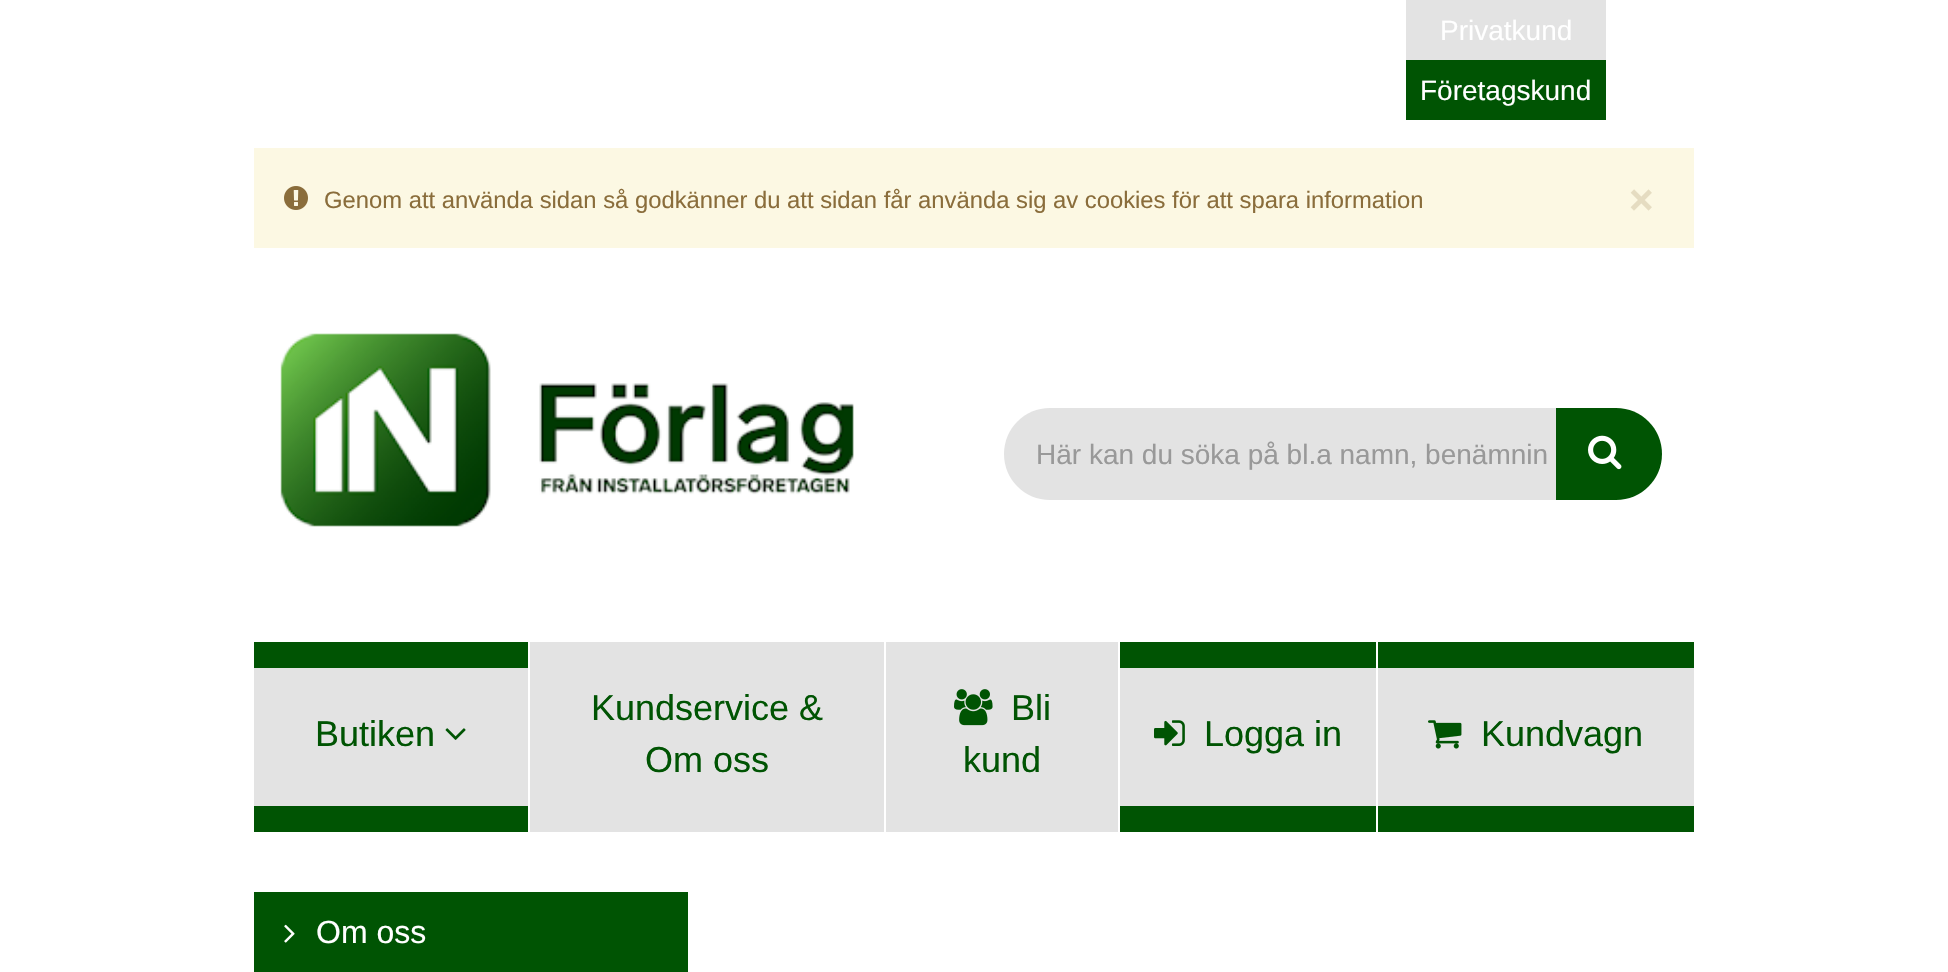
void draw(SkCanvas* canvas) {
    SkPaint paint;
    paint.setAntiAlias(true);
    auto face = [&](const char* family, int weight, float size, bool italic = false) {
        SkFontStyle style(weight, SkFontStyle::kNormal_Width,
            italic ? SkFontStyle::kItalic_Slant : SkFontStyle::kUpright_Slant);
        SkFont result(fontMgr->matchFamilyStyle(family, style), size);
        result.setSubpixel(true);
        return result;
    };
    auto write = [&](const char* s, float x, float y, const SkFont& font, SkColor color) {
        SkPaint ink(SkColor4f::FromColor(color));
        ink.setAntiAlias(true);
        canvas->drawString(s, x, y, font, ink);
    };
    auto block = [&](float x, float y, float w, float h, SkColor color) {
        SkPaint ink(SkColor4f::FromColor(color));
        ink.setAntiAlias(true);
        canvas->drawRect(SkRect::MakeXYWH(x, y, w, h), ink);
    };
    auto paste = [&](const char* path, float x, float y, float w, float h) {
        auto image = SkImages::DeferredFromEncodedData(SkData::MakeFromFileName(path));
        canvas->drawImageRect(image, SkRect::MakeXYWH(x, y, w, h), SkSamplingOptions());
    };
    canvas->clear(SK_ColorWHITE);
    block(1406, 0, 200, 60, SkColorSetRGB(227, 227, 227));
    auto kFont1 = face("Liberation Sans", 400, 28);
    write("Privatkund", 1440, 40, kFont1, SK_ColorWHITE);
    block(1406, 60, 200, 60, SkColorSetRGB(0, 84, 3));
    write("Företagskund", 1420, 100, kFont1, SK_ColorWHITE);
    block(254, 148, 1440, 100, SkColorSetRGB(252, 248, 227));
    paste("pic1.png", 284, 186, 24, 24);
    auto kFont2 = face("Liberation Sans", 400, 23.8f);
    write("Genom att använda sidan så godkänner du att sidan får använda sig av cookies för att spara information", 324, 208, kFont2, SkColorSetRGB(138, 109, 59));
    auto kFont3 = face("Liberation Sans", 700, 42);
    write("×", 1629, 214, kFont3, SkColorSetRGB(229, 220, 193));
    paste("pic2.png", 280, 333, 574, 194);
    paint.setColor(SkColorSetRGB(227, 227, 227));
    canvas->drawPath(SkPathBuilder().moveTo(1050, 408).lineTo(1556, 408).lineTo(1556, 500).lineTo(1050, 500).cubicTo(1024.5f, 500, 1004, 479.5f, 1004, 454).cubicTo(1004, 428.5f, 1024.5f, 408, 1050, 408).close().detach(), paint);
    write("Här kan du söka på bl.a namn, benämnin", 1036, 464, kFont1, SkColorSetRGB(153, 153, 153));
    paint.setColor(SkColorSetRGB(0, 84, 3));
    canvas->drawPath(SkPathBuilder().moveTo(1556, 408).lineTo(1616, 408).cubicTo(1641.5f, 408, 1662, 428.5f, 1662, 454).cubicTo(1662, 479.5f, 1641.5f, 500, 1616, 500).lineTo(1556, 500).close().detach(), paint);
    paste("pic3.png", 1588, 435, 34, 35);
    block(254, 642, 1440, 190, SkColorSetRGB(0, 84, 3));
    block(528, 642, 2, 190, SK_ColorWHITE);
    block(254, 668, 274, 138, SkColorSetRGB(227, 227, 227));
    auto kFont4 = face("Liberation Sans", 400, 36);
    write("Butiken", 315, 746, kFont4, SkColorSetRGB(0, 84, 3));
    paste("pic4.png", 445, 728, 21, 12);
    block(884, 642, 2, 190, SK_ColorWHITE);
    block(530, 642, 354, 190, SkColorSetRGB(227, 227, 227));
    write("Kundservice &", 591, 720, kFont4, SkColorSetRGB(0, 84, 3));
    write("Om oss", 645, 772, kFont4, SkColorSetRGB(0, 84, 3));
    block(1118, 642, 2, 190, SK_ColorWHITE);
    block(886, 642, 232, 190, SkColorSetRGB(227, 227, 227));
    paste("pic5.png", 954, 689, 39, 37);
    write("Bli", 1011, 720, kFont4, SkColorSetRGB(0, 84, 3));
    write("kund", 963, 772, kFont4, SkColorSetRGB(0, 84, 3));
    block(1376, 642, 2, 190, SK_ColorWHITE);
    block(1120, 668, 256, 138, SkColorSetRGB(227, 227, 227));
    paste("pic6.png", 1154, 720, 31, 26);
    write("Logga in", 1204, 746, kFont4, SkColorSetRGB(0, 84, 3));
    block(1378, 668, 316, 138, SkColorSetRGB(227, 227, 227));
    paste("pic7.png", 1428, 720, 34, 29);
    write("Kundvagn", 1481, 746, kFont4, SkColorSetRGB(0, 84, 3));
    block(254, 892, 434, 80, SkColorSetRGB(0, 84, 3));
    paste("pic8.png", 284, 924, 11, 19);
    auto kFont5 = face("Liberation Sans", 400, 32);
    write("Om oss", 316, 943, kFont5, SK_ColorWHITE);
}
